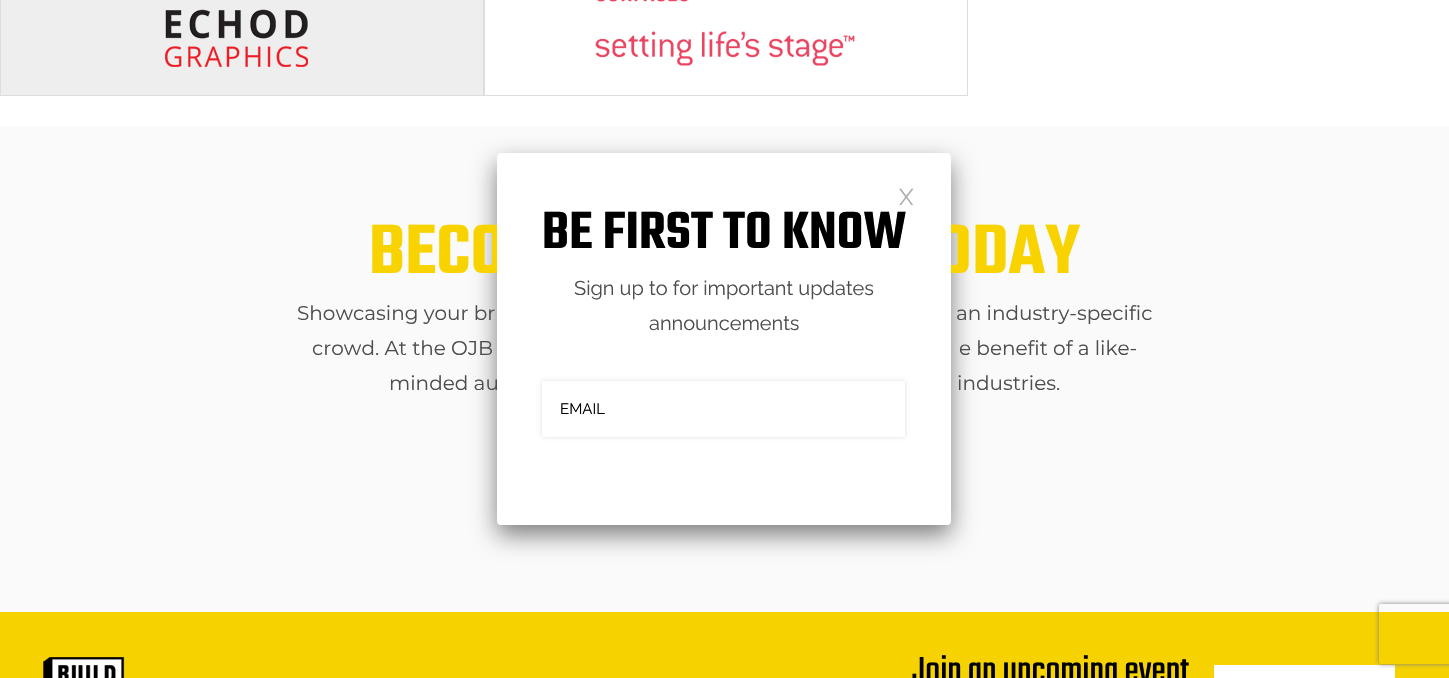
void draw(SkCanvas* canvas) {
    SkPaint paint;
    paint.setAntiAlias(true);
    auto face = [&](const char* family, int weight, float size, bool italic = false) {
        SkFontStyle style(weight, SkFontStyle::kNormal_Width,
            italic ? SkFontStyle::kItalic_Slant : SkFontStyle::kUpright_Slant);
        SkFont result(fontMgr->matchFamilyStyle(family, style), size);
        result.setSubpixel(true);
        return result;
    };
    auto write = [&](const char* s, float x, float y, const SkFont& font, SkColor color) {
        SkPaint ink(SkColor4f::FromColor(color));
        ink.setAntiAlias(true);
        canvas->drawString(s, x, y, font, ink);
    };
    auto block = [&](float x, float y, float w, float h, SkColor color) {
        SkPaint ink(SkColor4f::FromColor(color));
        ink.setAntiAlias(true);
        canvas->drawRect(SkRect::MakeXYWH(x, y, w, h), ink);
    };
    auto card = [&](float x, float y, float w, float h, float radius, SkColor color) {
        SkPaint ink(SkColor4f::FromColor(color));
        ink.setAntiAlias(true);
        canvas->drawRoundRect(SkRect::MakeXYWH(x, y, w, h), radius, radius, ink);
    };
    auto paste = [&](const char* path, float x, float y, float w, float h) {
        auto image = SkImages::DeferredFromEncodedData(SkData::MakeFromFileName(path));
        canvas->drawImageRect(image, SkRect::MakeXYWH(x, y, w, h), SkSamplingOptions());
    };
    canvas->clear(SK_ColorWHITE);
    block(0, 126, 1449, 486, SkColorSetRGB(250, 250, 250));
    paint.setColor(SkColorSetARGB(128, 0, 0, 0));
    paint.setMaskFilter(SkMaskFilter::MakeBlur(kNormal_SkBlurStyle, 12.5f));
    canvas->drawRoundRect(SkRect::MakeXYWH(497, 163, 454, 372), 4, 4, paint);
    paint.setMaskFilter(nullptr);
    auto kFont1 = face("Teko", 600, 76);
    write("BECO", 369, 273, kFont1, SkColorSetRGB(249, 211, 0));
    write("ODAY", 936, 273, kFont1, SkColorSetRGB(249, 211, 0));
    card(497, 153, 454, 372, 4, SK_ColorWHITE);
    auto kFont2 = face("Raleway", 400, 23);
    write("X", 899, 205, kFont2, SkColorSetRGB(170, 170, 170));
    auto kFont3 = face("Teko", 600, 57);
    write("BE FIRST TO KNOW", 542, 248, kFont3, SK_ColorBLACK);
    auto kFont4 = face("Raleway", 400, 20);
    write("Sign up to for important updates", 574, 295, kFont4, SkColorSetRGB(77, 77, 77));
    write("announcements", 649, 330, kFont4, SkColorSetRGB(77, 77, 77));
    canvas->save();
    canvas->clipPath(SkPathBuilder(SkPathFillType::kEvenOdd).moveTo(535, 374).lineTo(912, 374).lineTo(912, 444).lineTo(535, 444).close().moveTo(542, 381).lineTo(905, 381).lineTo(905, 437).lineTo(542, 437).close().detach(), true);
    paint.setColor(SkColorSetRGB(221, 221, 221));
    paint.setMaskFilter(SkMaskFilter::MakeBlur(kNormal_SkBlurStyle, 2));
    canvas->drawRect(SkRect::MakeXYWH(542, 381, 363, 56), paint);
    paint.setMaskFilter(nullptr);
    canvas->restore();
    auto kFont5 = face("Raleway", 400, 15);
    write("EMAIL", 560, 414, kFont5, SK_ColorBLACK);
    block(1, 0, 482, 95, SkColorSetRGB(238, 238, 238));
    paint.setStyle(SkPaint::kStroke_Style);
    paint.setStrokeWidth(1);
    canvas->drawRect(SkRect::MakeXYWH(0.5f, -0.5f, 484, 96), paint);
    paste("pic1.png", 165, 9, 143, 58);
    canvas->drawRect(SkRect::MakeXYWH(483.5f, -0.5f, 484, 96), paint);
    paste("pic2.png", 595, 0, 260, 66);
    auto kFont6 = face("Montserrat", 400, 20);
    write("Showcasing your br", 297, 320, kFont6, SkColorSetRGB(77, 77, 77));
    write("an industry-specific", 956, 320, kFont6, SkColorSetRGB(77, 77, 77));
    write("crowd. At the OJB", 312, 355, kFont6, SkColorSetRGB(77, 77, 77));
    write("e benefit of a like-", 959, 355, kFont6, SkColorSetRGB(77, 77, 77));
    write("minded au", 389, 390, kFont6, SkColorSetRGB(77, 77, 77));
    write("industries.", 957, 390, kFont6, SkColorSetRGB(77, 77, 77));
    block(0, 612, 1449, 66, SkColorSetRGB(245, 210, 0));
    paste("pic3.png", 43, 657, 82, 21);
    auto kFont7 = face("Teko", 400, 40);
    write("Join an upcoming event", 912, 682, kFont7, SK_ColorBLACK);
    block(1214, 665, 181, 13, SK_ColorWHITE);
    canvas->save();
    canvas->clipPath(SkPathBuilder(SkPathFillType::kEvenOdd).moveTo(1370, 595).lineTo(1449, 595).lineTo(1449, 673).lineTo(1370, 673).close().moveTo(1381, 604).lineTo(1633, 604).cubicTo(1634, 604, 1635, 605, 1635, 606).lineTo(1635, 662).cubicTo(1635, 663, 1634, 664, 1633, 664).lineTo(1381, 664).cubicTo(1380, 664, 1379, 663, 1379, 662).lineTo(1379, 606).cubicTo(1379, 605, 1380, 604, 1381, 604).close().detach(), true);
    paint.setStyle(SkPaint::kFill_Style);
    paint.setColor(SkColorSetRGB(128, 128, 128));
    paint.setMaskFilter(SkMaskFilter::MakeBlur(kNormal_SkBlurStyle, 2.5f));
    canvas->drawRoundRect(SkRect::MakeXYWH(1379, 604, 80, 60), 2, 2, paint);
    paint.setMaskFilter(nullptr);
    canvas->restore();
}
